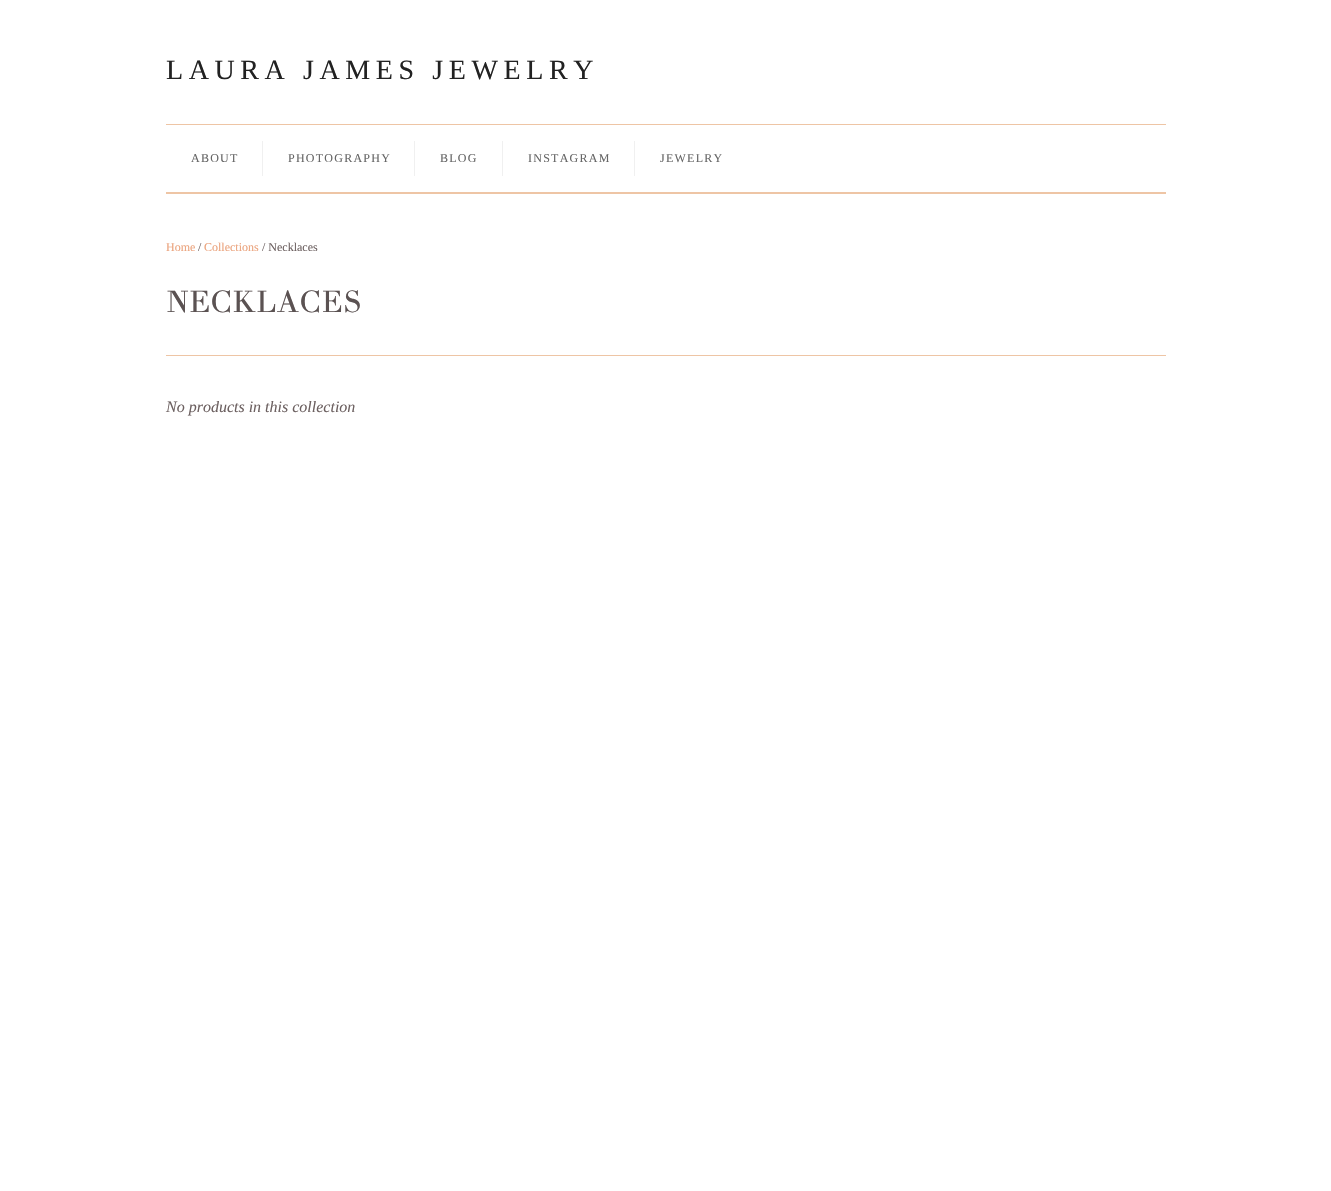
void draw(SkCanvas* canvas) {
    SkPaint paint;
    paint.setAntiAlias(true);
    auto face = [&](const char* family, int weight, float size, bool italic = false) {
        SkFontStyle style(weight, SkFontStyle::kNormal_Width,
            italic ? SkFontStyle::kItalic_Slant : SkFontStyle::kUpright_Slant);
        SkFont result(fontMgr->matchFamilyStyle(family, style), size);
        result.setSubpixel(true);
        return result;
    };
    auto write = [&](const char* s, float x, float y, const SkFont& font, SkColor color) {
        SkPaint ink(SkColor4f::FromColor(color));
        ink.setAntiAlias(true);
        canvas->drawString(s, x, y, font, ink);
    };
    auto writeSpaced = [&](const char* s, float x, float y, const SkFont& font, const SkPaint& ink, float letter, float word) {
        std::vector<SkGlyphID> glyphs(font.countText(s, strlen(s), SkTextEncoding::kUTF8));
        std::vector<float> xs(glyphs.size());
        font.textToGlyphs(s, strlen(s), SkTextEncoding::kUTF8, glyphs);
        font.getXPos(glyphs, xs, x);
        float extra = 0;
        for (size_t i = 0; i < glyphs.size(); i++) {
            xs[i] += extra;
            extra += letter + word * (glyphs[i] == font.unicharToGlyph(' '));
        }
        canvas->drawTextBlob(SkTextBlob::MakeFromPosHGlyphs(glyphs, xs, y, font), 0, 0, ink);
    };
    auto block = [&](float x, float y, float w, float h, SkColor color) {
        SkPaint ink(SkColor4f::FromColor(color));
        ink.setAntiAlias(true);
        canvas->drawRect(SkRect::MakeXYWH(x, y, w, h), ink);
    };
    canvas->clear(SK_ColorWHITE);
    auto kFont1 = face("Liberation Serif", 400, 28);
    paint.setColor(SkColorSetRGB(34, 34, 34));
    writeSpaced("LAURA JAMES JEWELRY", 166, 79, kFont1, paint, 5.6f, 0);
    block(166, 124, 1000, 1, SkColorSetRGB(238, 197, 165));
    block(166, 192, 1000, 2, SkColorSetRGB(238, 197, 165));
    auto kFont2 = face("Liberation Serif", 400, 12);
    paint.setColor(SkColorSetRGB(102, 102, 102));
    writeSpaced("ABOUT", 191, 162, kFont2, paint, 1.25f, 0);
    block(262, 141, 1, 35, SkColorSetRGB(240, 240, 240));
    writeSpaced("PHOTOGRAPHY", 288, 162, kFont2, paint, 1.25f, 0);
    block(414, 141, 1, 35, SkColorSetRGB(240, 240, 240));
    writeSpaced("BLOG", 440, 162, kFont2, paint, 1.25f, 0);
    block(502, 141, 1, 35, SkColorSetRGB(240, 240, 240));
    writeSpaced("INSTAGRAM", 528, 162, kFont2, paint, 1.25f, 0);
    block(634, 141, 1, 35, SkColorSetRGB(240, 240, 240));
    writeSpaced("JEWELRY", 660, 162, kFont2, paint, 1.25f, 0);
    write("Home", 166, 251, kFont2, SkColorSetRGB(235, 164, 126));
    write("/", 198, 251, kFont2, SkColorSetRGB(108, 96, 96));
    write("Collections", 204, 251, kFont2, SkColorSetRGB(235, 164, 126));
    write("/ Necklaces", 262, 251, kFont2, SkColorSetRGB(108, 96, 96));
    block(166, 355, 1000, 1, SkColorSetRGB(238, 197, 165));
    auto kFont3 = face("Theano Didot", 400, 30.5f);
    write("NECKLACES", 166, 312, kFont3, SkColorSetRGB(91, 82, 82));
    auto kFont4 = face("Liberation Serif", 400, 16, true);
    write("No products in this collection", 166, 412, kFont4, SkColorSetRGB(108, 96, 96));
}
